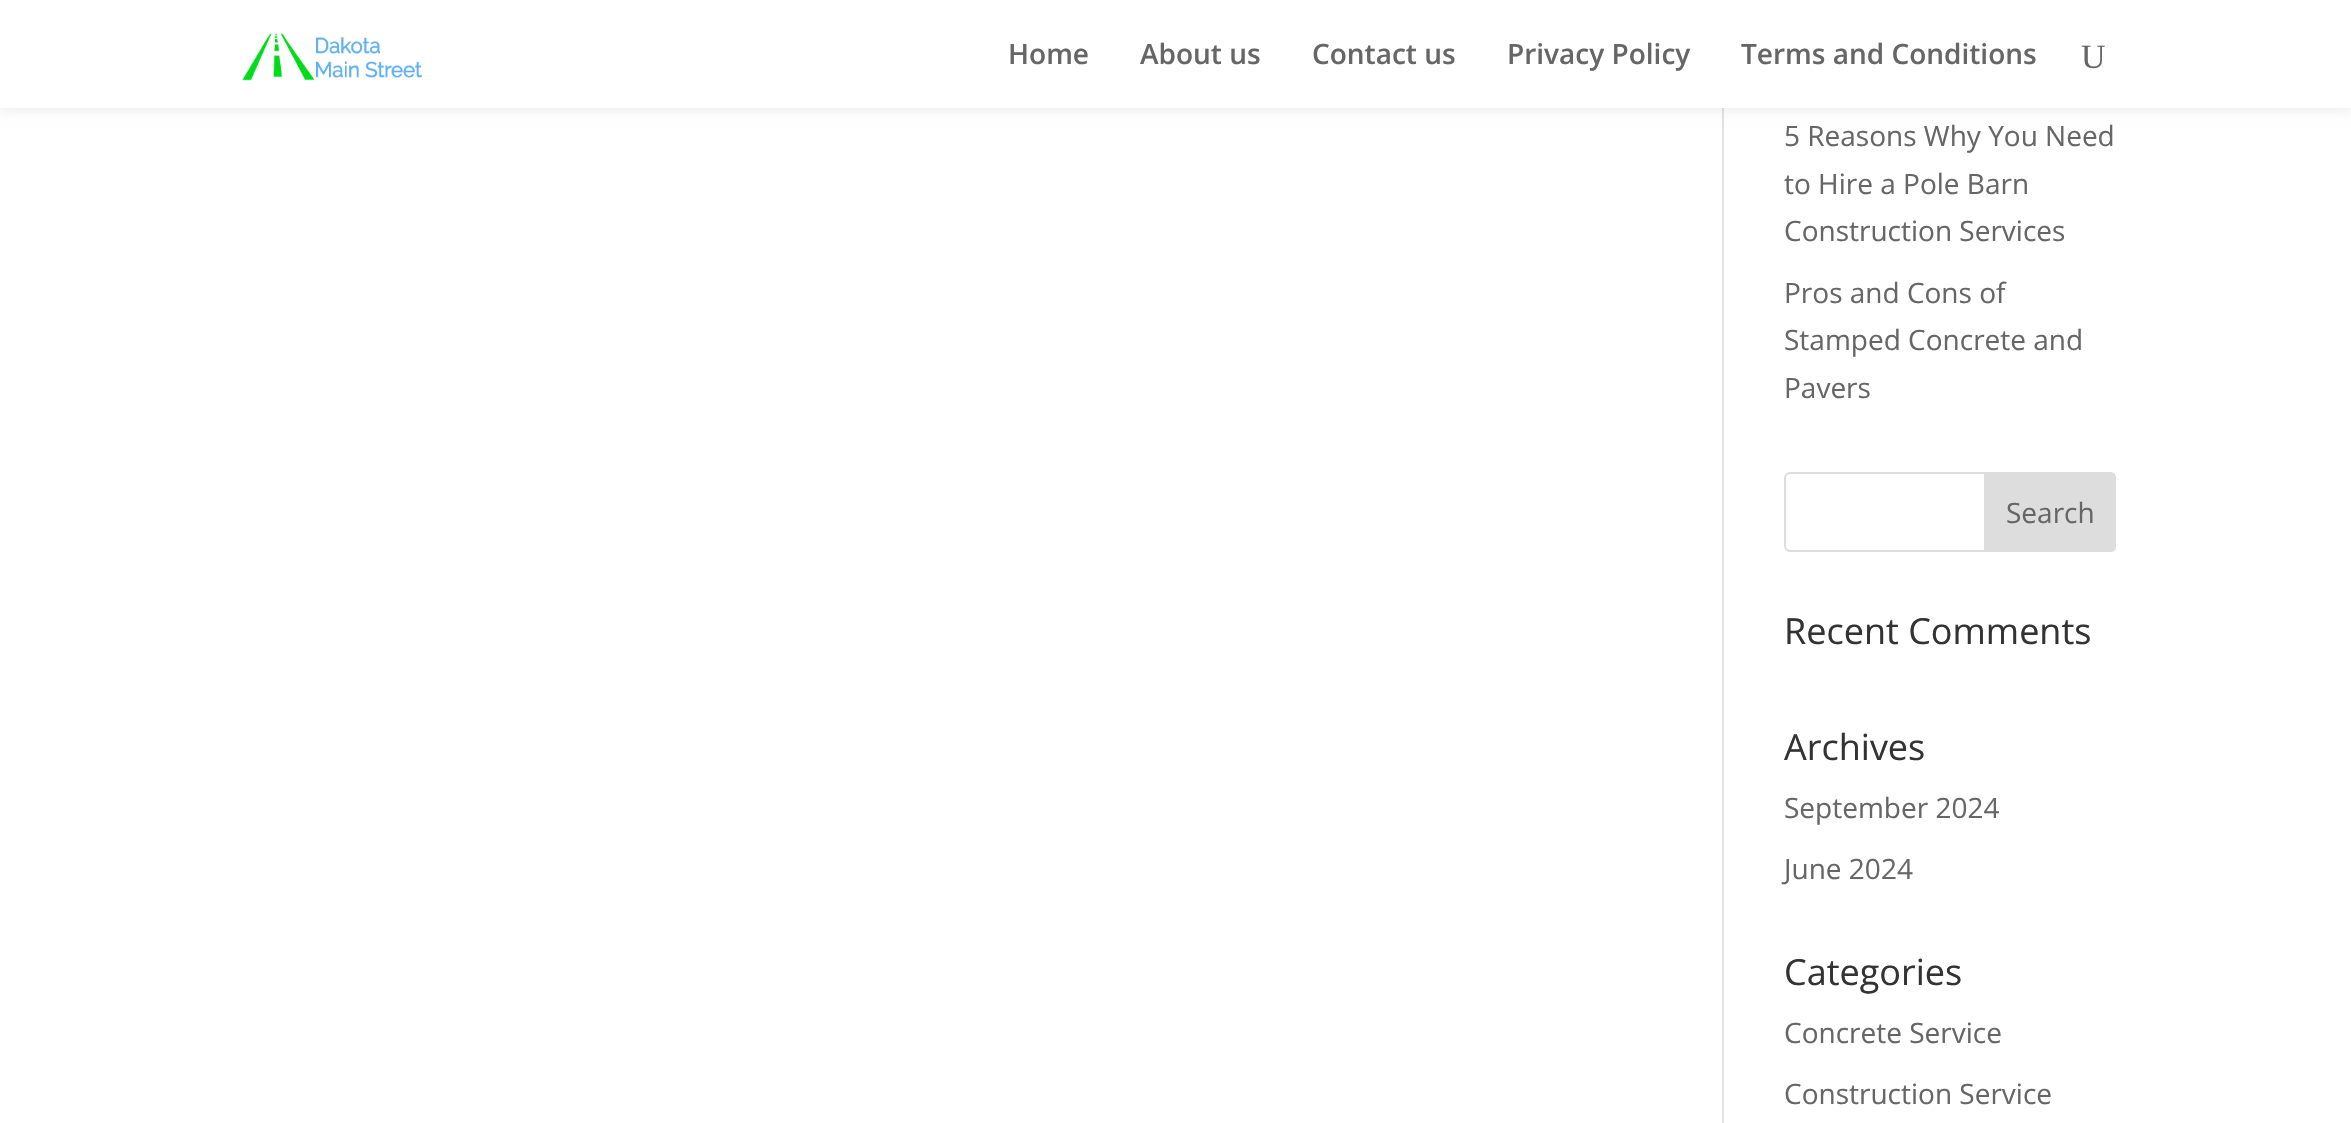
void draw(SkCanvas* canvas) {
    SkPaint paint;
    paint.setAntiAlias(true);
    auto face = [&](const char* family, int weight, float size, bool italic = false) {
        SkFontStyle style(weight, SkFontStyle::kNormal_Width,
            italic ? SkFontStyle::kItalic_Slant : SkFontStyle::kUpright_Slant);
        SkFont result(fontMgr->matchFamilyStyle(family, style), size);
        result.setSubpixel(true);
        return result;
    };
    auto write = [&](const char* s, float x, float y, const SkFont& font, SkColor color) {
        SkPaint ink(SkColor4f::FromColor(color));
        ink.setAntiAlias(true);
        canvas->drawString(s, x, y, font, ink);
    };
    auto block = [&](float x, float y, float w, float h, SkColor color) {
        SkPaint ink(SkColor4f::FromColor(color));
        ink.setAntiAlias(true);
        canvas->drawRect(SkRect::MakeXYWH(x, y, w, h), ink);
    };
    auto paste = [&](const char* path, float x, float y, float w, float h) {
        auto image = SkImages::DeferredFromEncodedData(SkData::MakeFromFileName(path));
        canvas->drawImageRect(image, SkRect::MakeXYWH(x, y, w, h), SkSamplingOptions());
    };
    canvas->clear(SK_ColorWHITE);
    block(1722, 108, 2, 1015, SkColorSetRGB(226, 226, 226));
    paint.setColor(SkColorSetARGB(26, 0, 0, 0));
    paint.setMaskFilter(SkMaskFilter::MakeBlur(kNormal_SkBlurStyle, 7));
    canvas->drawRect(SkRect::MakeXYWH(0, 0, 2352, 108), paint);
    paint.setMaskFilter(nullptr);
    block(0, 0, 2351, 108, SK_ColorWHITE);
    paste("pic1.png", 242, 33, 181, 48);
    auto kFont1 = face("Open Sans", 600, 28);
    write("Home", 1008, 64, kFont1, SkColorSetRGB(102, 102, 102));
    write("About us", 1140, 64, kFont1, SkColorSetRGB(102, 102, 102));
    write("Contact us", 1312, 64, kFont1, SkColorSetRGB(102, 102, 102));
    write("Privacy Policy", 1507, 64, kFont1, SkColorSetRGB(102, 102, 102));
    write("Terms and Conditions", 1741, 64, kFont1, SkColorSetRGB(102, 102, 102));
    auto kFont2 = face("Liberation Serif", 400, 34);
    write("U", 2081, 68, kFont2, SkColorSetRGB(102, 102, 102));
    auto kFont3 = face("Open Sans", 400, 28);
    write("5 Reasons Why You Need", 1784, 146, kFont3, SkColorSetRGB(102, 102, 102));
    write("to Hire a Pole Barn", 1784, 194, kFont3, SkColorSetRGB(102, 102, 102));
    write("Construction Services", 1784, 241, kFont3, SkColorSetRGB(102, 102, 102));
    write("Pros and Cons of", 1784, 303, kFont3, SkColorSetRGB(102, 102, 102));
    write("Stamped Concrete and", 1784, 350, kFont3, SkColorSetRGB(102, 102, 102));
    write("Pavers", 1784, 398, kFont3, SkColorSetRGB(102, 102, 102));
    paint.setStyle(SkPaint::kStroke_Style);
    paint.setStrokeWidth(2);
    paint.setColor(SkColorSetRGB(221, 221, 221));
    canvas->drawRoundRect(SkRect::MakeXYWH(1785, 473, 330, 78), 5, 5, paint);
    paint.setStyle(SkPaint::kFill_Style);
    canvas->drawPath(SkPathBuilder().moveTo(1985, 473).lineTo(2110, 473).cubicTo(2113, 473, 2115, 475, 2115, 478).lineTo(2115, 546).cubicTo(2115, 549, 2113, 551, 2110, 551).lineTo(1985, 551).close().detach(), paint);
    paint.setStyle(SkPaint::kStroke_Style);
    canvas->drawPath(SkPathBuilder().moveTo(1985, 473).lineTo(2110, 473).cubicTo(2113, 473, 2115, 475, 2115, 478).lineTo(2115, 546).cubicTo(2115, 549, 2113, 551, 2110, 551).lineTo(1985, 551).close().detach(), paint);
    write("Search", 2006, 523, kFont3, SkColorSetRGB(102, 102, 102));
    auto kFont4 = face("Open Sans", 400, 36);
    write("Recent Comments", 1784, 644, kFont4, SkColorSetRGB(51, 51, 51));
    write("Archives", 1784, 760, kFont4, SkColorSetRGB(51, 51, 51));
    write("September 2024", 1784, 818, kFont3, SkColorSetRGB(102, 102, 102));
    write("June 2024", 1784, 879, kFont3, SkColorSetRGB(102, 102, 102));
    write("Categories", 1784, 985, kFont4, SkColorSetRGB(51, 51, 51));
    write("Concrete Service", 1784, 1043, kFont3, SkColorSetRGB(102, 102, 102));
    write("Construction Service", 1784, 1104, kFont3, SkColorSetRGB(102, 102, 102));
}
